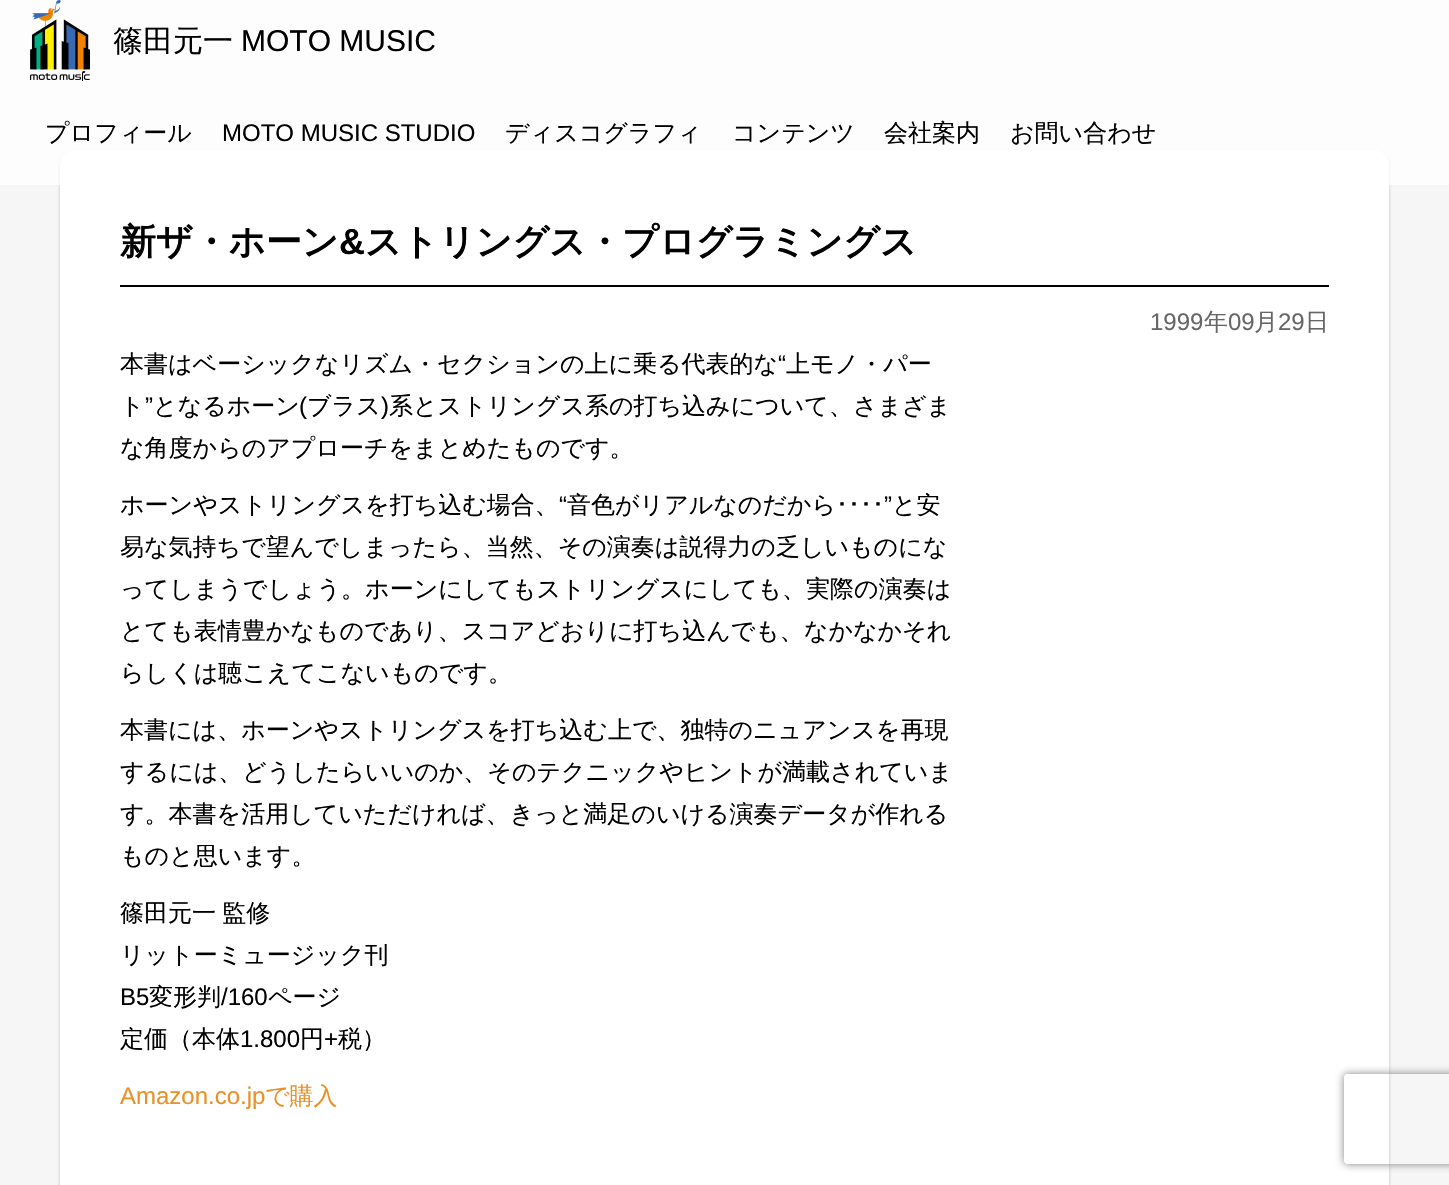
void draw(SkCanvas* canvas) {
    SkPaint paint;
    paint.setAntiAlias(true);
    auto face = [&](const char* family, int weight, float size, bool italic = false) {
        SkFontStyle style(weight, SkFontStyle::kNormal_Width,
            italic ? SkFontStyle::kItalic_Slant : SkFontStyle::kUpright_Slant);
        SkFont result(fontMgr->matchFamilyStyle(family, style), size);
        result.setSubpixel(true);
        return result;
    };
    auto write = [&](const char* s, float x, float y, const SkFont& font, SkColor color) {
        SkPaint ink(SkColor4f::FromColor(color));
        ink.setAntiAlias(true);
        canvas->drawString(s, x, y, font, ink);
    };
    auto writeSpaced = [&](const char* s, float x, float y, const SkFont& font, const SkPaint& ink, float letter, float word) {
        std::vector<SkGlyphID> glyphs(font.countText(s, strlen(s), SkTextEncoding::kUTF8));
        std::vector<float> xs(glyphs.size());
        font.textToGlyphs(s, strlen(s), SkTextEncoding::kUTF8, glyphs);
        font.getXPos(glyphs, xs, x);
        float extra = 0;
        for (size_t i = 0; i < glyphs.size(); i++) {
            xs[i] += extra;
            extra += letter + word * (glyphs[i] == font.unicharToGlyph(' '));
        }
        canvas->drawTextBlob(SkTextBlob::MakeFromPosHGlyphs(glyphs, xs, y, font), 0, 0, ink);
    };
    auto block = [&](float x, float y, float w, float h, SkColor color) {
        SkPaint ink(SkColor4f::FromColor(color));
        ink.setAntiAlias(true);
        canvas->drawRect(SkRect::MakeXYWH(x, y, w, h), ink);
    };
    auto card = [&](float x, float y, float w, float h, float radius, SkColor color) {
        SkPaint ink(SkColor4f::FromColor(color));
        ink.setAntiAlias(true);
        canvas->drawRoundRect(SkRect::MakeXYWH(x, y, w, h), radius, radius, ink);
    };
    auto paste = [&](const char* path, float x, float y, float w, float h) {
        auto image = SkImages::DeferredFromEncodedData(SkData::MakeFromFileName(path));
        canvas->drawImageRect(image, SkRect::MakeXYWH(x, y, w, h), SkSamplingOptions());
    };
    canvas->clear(SkColorSetRGB(246, 246, 246));
    paint.setColor(SkColorSetARGB(64, 0, 0, 0));
    paint.setMaskFilter(SkMaskFilter::MakeBlur(kNormal_SkBlurStyle, 1.5f));
    canvas->drawRoundRect(SkRect::MakeXYWH(60, 152, 1329, 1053), 15, 15, paint);
    paint.setMaskFilter(nullptr);
    card(60, 150, 1329, 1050, 15, SK_ColorWHITE);
    block(0, 0, 1449, 185, SkColorSetARGB(179, 255, 255, 255));
    paste("pic1.png", 30, 0, 60, 81);
    auto kFont1 = face("WenQuanYi Zen Hei", 500, 30);
    write("篠田元一", 113, 51, kFont1, SK_ColorBLACK);
    auto kFont2 = face("Liberation Sans", 400, 30);
    write("MOTO MUSIC", 241, 51, kFont2, SK_ColorBLACK);
    auto kFont3 = face("WenQuanYi Zen Hei", 500, 24);
    write("プロフィール", 45, 141, kFont3, SK_ColorBLACK);
    auto kFont4 = face("Liberation Sans", 400, 24);
    write("MOTO MUSIC STUDIO", 222, 141, kFont4, SK_ColorBLACK);
    write("ディスコグラフィ", 505, 141, kFont3, SK_ColorBLACK);
    write("コンテンツ", 732, 141, kFont3, SK_ColorBLACK);
    write("会社案内", 884, 141, kFont3, SK_ColorBLACK);
    write("お問い合わせ", 1010, 141, kFont3, SK_ColorBLACK);
    block(120, 285, 1209, 2, SK_ColorBLACK);
    auto kFont5 = face("WenQuanYi Zen Hei", 700, 36);
    write("新ザ・ホーン", 120, 254, kFont5, SK_ColorBLACK);
    auto kFont6 = face("Liberation Sans", 700, 36);
    write("&", 339, 254, kFont6, SK_ColorBLACK);
    write("ストリングス・プログラミングス", 365, 254, kFont5, SK_ColorBLACK);
    write("1999", 1150, 330, kFont4, SkColorSetRGB(102, 102, 102));
    write("年", 1204, 330, kFont3, SkColorSetRGB(102, 102, 102));
    write("09", 1228, 330, kFont4, SkColorSetRGB(102, 102, 102));
    write("月", 1254, 330, kFont3, SkColorSetRGB(102, 102, 102));
    write("29", 1278, 330, kFont4, SkColorSetRGB(102, 102, 102));
    write("日", 1305, 330, kFont3, SkColorSetRGB(102, 102, 102));
    write("本書はベーシックなリズム・セクションの上に乗る代表的な", 120, 372, kFont3, SK_ColorBLACK);
    write("“", 778, 372, kFont4, SK_ColorBLACK);
    write("上モノ・パー", 786, 372, kFont3, SK_ColorBLACK);
    write("ト", 120, 414, kFont3, SK_ColorBLACK);
    write("”", 145, 414, kFont4, SK_ColorBLACK);
    write("となるホーン", 153, 414, kFont3, SK_ColorBLACK);
    write("(", 299, 414, kFont4, SK_ColorBLACK);
    write("ブラス", 307, 414, kFont3, SK_ColorBLACK);
    write(")", 381, 414, kFont4, SK_ColorBLACK);
    write("系とストリングス系の打ち込みについて、さまざま", 389, 414, kFont3, SK_ColorBLACK);
    write("な角度からのアプローチをまとめたものです。", 120, 456, kFont3, SK_ColorBLACK);
    write("ホーンやストリングスを打ち込む場合、", 120, 513, kFont3, SK_ColorBLACK);
    write("“", 559, 513, kFont4, SK_ColorBLACK);
    write("音色がリアルなのだから", 567, 513, kFont3, SK_ColorBLACK);
    write("”", 884, 513, kFont4, SK_ColorBLACK);
    write("と安", 892, 513, kFont3, SK_ColorBLACK);
    auto kFont7 = face("IPAGothic", 400, 24);
    write("････", 836, 513, kFont7, SK_ColorBLACK);
    write("易な気持ちで望んでしまったら、当然、その演奏は説得力の乏しいものにな", 120, 555, kFont3, SK_ColorBLACK);
    write("ってしまうでしょう。ホーンにしてもストリングスにしても、実際の演奏は", 120, 597, kFont3, SK_ColorBLACK);
    write("とても表情豊かなものであり、スコアどおりに打ち込んでも、なかなかそれ", 120, 639, kFont3, SK_ColorBLACK);
    write("らしくは聴こえてこないものです。", 120, 681, kFont3, SK_ColorBLACK);
    write("本書には、ホーンやストリングスを打ち込む上で、独特のニュアンスを再現", 120, 738, kFont3, SK_ColorBLACK);
    write("するには、どうしたらいいのか、そのテクニックやヒントが満載されていま", 120, 780, kFont3, SK_ColorBLACK);
    write("す。本書を活用していただければ、きっと満足のいける演奏データが作れる", 120, 822, kFont3, SK_ColorBLACK);
    write("ものと思います。", 120, 864, kFont3, SK_ColorBLACK);
    paint.setColor(SK_ColorBLACK);
    writeSpaced("篠田元一 監修", 120, 921, kFont3, paint, 0, -1);
    write("リットーミュージック刊", 120, 963, kFont3, SK_ColorBLACK);
    write("B5", 120, 1005, kFont4, SK_ColorBLACK);
    write("変形判", 149, 1005, kFont3, SK_ColorBLACK);
    write("/160", 221, 1005, kFont4, SK_ColorBLACK);
    write("ページ", 268, 1005, kFont3, SK_ColorBLACK);
    write("定価（本体", 120, 1047, kFont3, SK_ColorBLACK);
    write("1.800", 240, 1047, kFont4, SK_ColorBLACK);
    write("円", 300, 1047, kFont3, SK_ColorBLACK);
    write("+", 324, 1047, kFont4, SK_ColorBLACK);
    write("税）", 338, 1047, kFont3, SK_ColorBLACK);
    write("Amazon.co.jp", 120, 1104, kFont4, SkColorSetRGB(233, 145, 41));
    write("で購入", 265, 1104, kFont3, SkColorSetRGB(233, 145, 41));
    canvas->save();
    canvas->clipPath(SkPathBuilder(SkPathFillType::kEvenOdd).moveTo(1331, 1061).lineTo(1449, 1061).lineTo(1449, 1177).lineTo(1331, 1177).close().moveTo(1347, 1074).lineTo(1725, 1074).cubicTo(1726.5f, 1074, 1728, 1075.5f, 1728, 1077).lineTo(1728, 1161).cubicTo(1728, 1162.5f, 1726.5f, 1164, 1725, 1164).lineTo(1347, 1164).cubicTo(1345.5f, 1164, 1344, 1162.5f, 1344, 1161).lineTo(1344, 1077).cubicTo(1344, 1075.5f, 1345.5f, 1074, 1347, 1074).close().detach(), true);
    paint.setColor(SkColorSetRGB(128, 128, 128));
    paint.setMaskFilter(SkMaskFilter::MakeBlur(kNormal_SkBlurStyle, 4));
    canvas->drawRoundRect(SkRect::MakeXYWH(1344, 1074, 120, 90), 3, 3, paint);
    paint.setMaskFilter(nullptr);
    canvas->restore();
}
